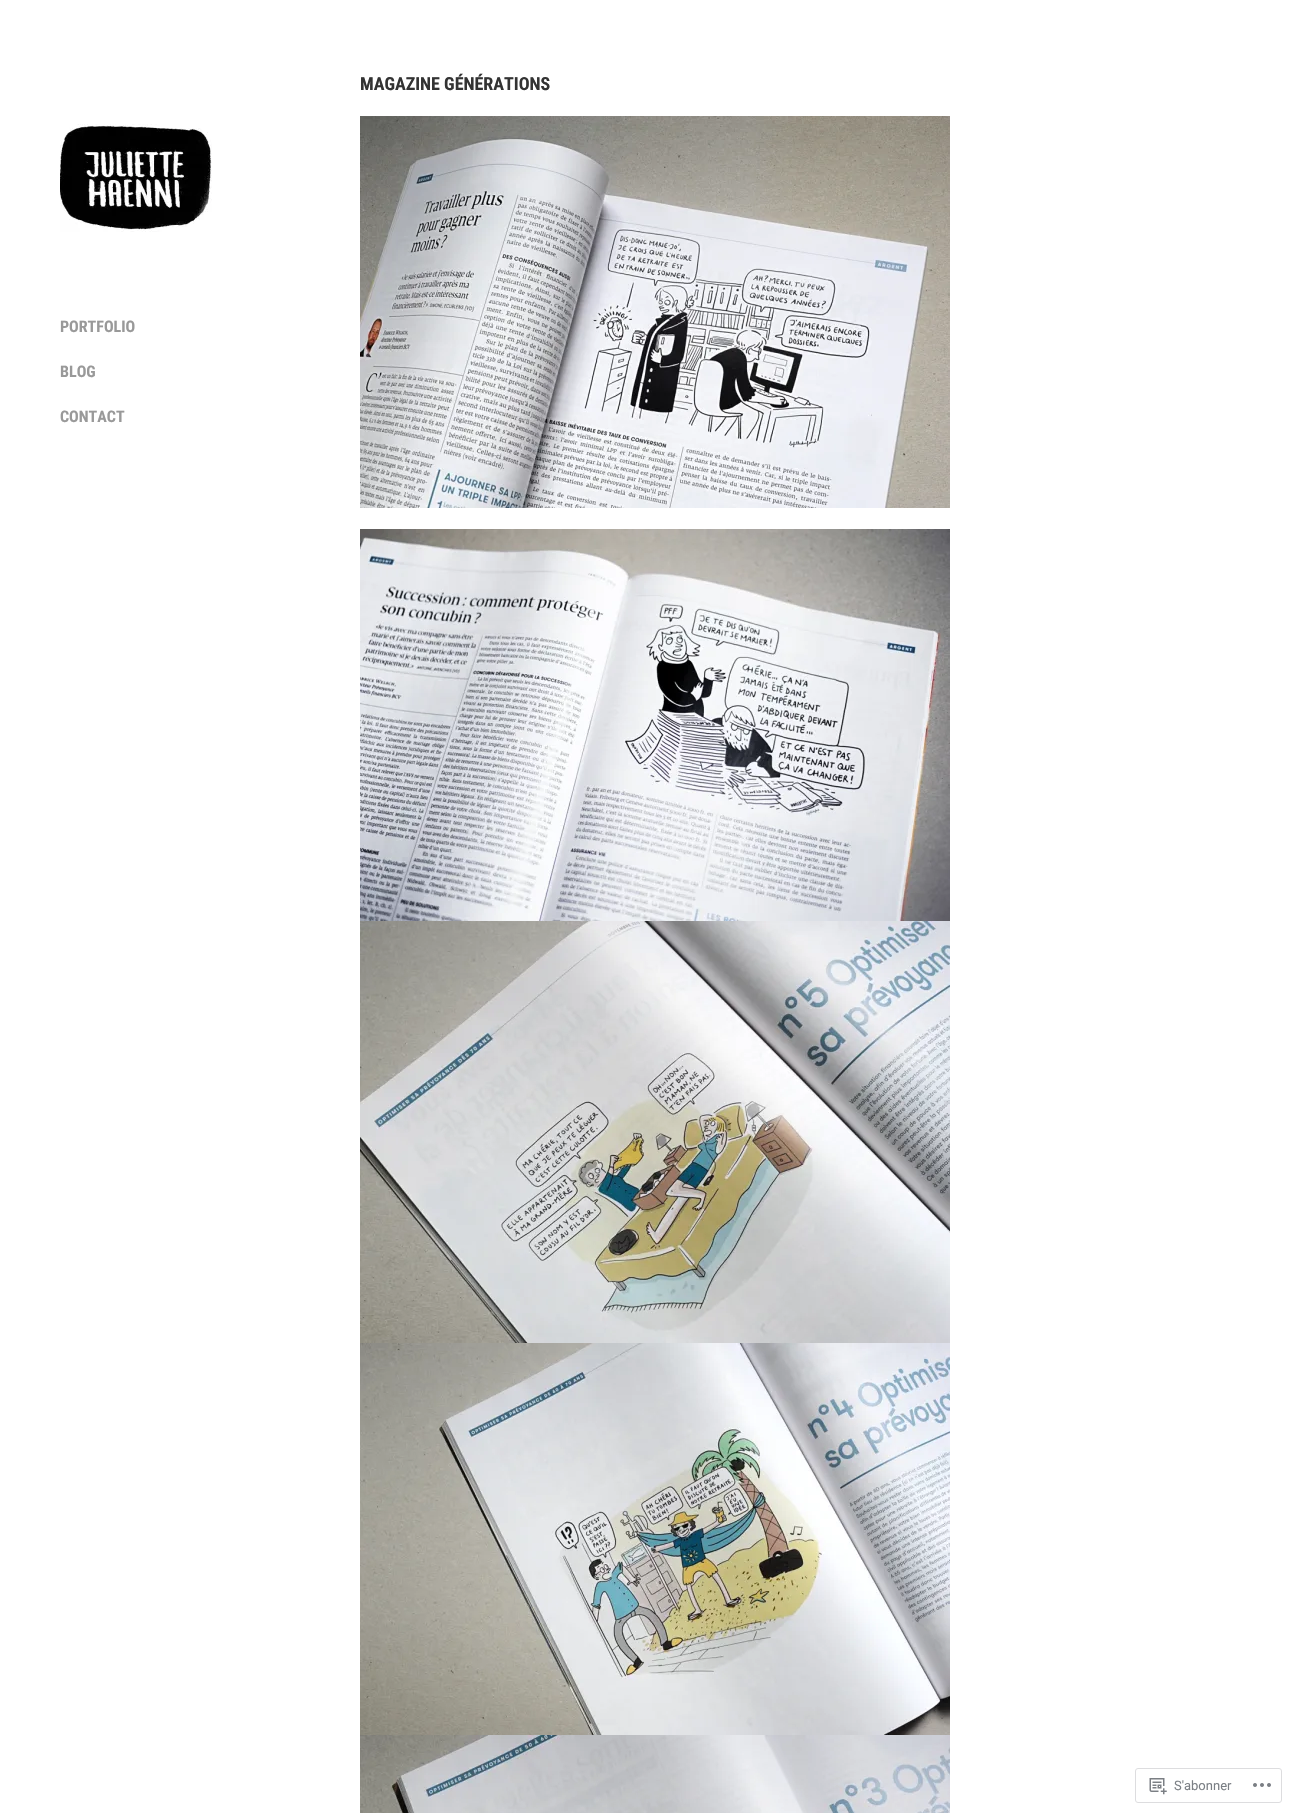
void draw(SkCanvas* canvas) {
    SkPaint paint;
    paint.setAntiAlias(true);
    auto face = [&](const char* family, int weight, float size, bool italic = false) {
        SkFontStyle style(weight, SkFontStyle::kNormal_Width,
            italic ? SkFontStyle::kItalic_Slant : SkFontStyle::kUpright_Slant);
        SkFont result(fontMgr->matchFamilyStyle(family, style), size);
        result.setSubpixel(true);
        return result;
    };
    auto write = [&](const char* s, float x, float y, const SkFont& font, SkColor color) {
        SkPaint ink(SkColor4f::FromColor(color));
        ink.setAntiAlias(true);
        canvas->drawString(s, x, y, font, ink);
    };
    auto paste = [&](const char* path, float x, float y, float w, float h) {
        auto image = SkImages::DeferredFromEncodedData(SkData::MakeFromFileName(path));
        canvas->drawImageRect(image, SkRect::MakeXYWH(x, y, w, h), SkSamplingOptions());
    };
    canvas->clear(SK_ColorWHITE);
    auto kFont1 = face("Roboto Condensed", 700, 18);
    write("MAGAZINE GÉNÉRATIONS", 360, 90, kFont1, SkColorSetRGB(51, 51, 51));
    paste("pic1.png", 360, 116, 590, 392);
    paste("pic2.png", 360, 529, 590, 392);
    paste("pic3.png", 360, 921, 590, 422);
    paste("pic4.png", 360, 1343, 590, 392);
    paste("pic5.png", 360, 1735, 590, 78);
    paste("pic6.png", 60, 124, 152, 108);
    auto kFont2 = face("Roboto Condensed", 700, 16);
    write("PORTFOLIO", 60, 332, kFont2, SkColorSetRGB(153, 153, 153));
    write("BLOG", 60, 377, kFont2, SkColorSetRGB(153, 153, 153));
    write("CONTACT", 60, 422, kFont2, SkColorSetRGB(153, 153, 153));
    paint.setStyle(SkPaint::kStroke_Style);
    paint.setStrokeWidth(1);
    paint.setColor(SkColorSetRGB(221, 221, 223));
    canvas->drawRoundRect(SkRect::MakeXYWH(1135.5f, 1768.5f, 146, 34), 2.5f, 2.5f, paint);
    paste("pic7.png", 1149, 1778, 18, 17);
    auto kFont3 = face("Roboto", 400, 13);
    write("S'abonner", 1174, 1790, kFont3, SkColorSetRGB(123, 127, 133));
    paste("pic8.png", 1253, 1783, 18, 4);
}
